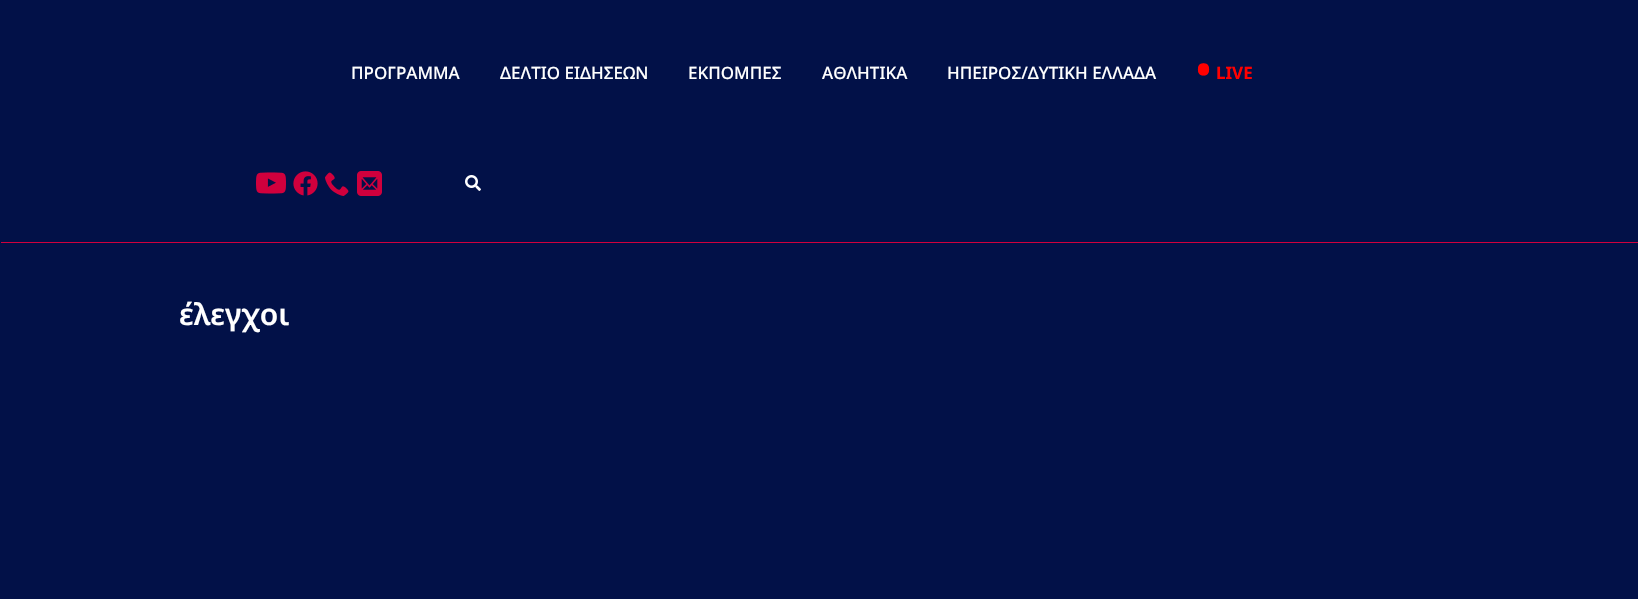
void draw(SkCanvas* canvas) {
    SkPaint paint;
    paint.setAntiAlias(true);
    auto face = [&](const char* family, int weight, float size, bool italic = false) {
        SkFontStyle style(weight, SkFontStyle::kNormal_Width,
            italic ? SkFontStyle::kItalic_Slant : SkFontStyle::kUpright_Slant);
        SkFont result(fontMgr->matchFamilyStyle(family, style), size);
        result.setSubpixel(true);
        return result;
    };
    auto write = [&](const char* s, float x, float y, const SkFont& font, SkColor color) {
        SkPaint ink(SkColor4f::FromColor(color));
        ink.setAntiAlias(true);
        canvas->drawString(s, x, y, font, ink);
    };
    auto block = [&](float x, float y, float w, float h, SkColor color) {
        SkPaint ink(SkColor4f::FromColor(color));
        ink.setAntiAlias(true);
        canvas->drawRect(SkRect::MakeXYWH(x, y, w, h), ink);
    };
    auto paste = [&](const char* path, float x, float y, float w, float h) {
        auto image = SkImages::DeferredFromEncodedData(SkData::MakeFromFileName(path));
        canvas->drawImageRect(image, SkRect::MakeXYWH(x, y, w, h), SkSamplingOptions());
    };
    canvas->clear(SkColorSetRGB(2, 17, 72));
    block(1, 242, 1637, 1, SkColorSetRGB(208, 0, 61));
    auto kFont1 = face("Noto Sans", 500, 17);
    write("ΠΡΟΓΡΑΜΜΑ", 351, 79, kFont1, SK_ColorWHITE);
    write("ΔΕΛΤΙΟ ΕΙΔΗΣΕΩΝ", 500, 79, kFont1, SK_ColorWHITE);
    write("ΕΚΠΟΜΠΕΣ", 688, 79, kFont1, SK_ColorWHITE);
    write("ΑΘΛΗΤΙΚΑ", 822, 79, kFont1, SK_ColorWHITE);
    write("ΗΠΕΙΡΟΣ/ΔΥΤΙΚΗ ΕΛΛΑΔΑ", 947, 79, kFont1, SK_ColorWHITE);
    auto kFont2 = face("Noto Sans", 700, 40);
    write("•", 1196, 84, kFont2, SkColorSetRGB(255, 0, 0));
    auto kFont3 = face("Noto Sans", 700, 17);
    write("LIVE", 1216, 79, kFont3, SkColorSetRGB(255, 0, 0));
    paste("pic1.png", 256, 172, 30, 22);
    paste("pic2.png", 293, 171, 25, 25);
    paste("pic3.png", 325, 172, 24, 24);
    paste("pic4.png", 357, 171, 25, 25);
    paste("pic5.png", 465, 175, 16, 16);
    auto kFont4 = face("Noto Sans", 600, 30);
    write("έλεγχοι", 179, 325, kFont4, SK_ColorWHITE);
}
